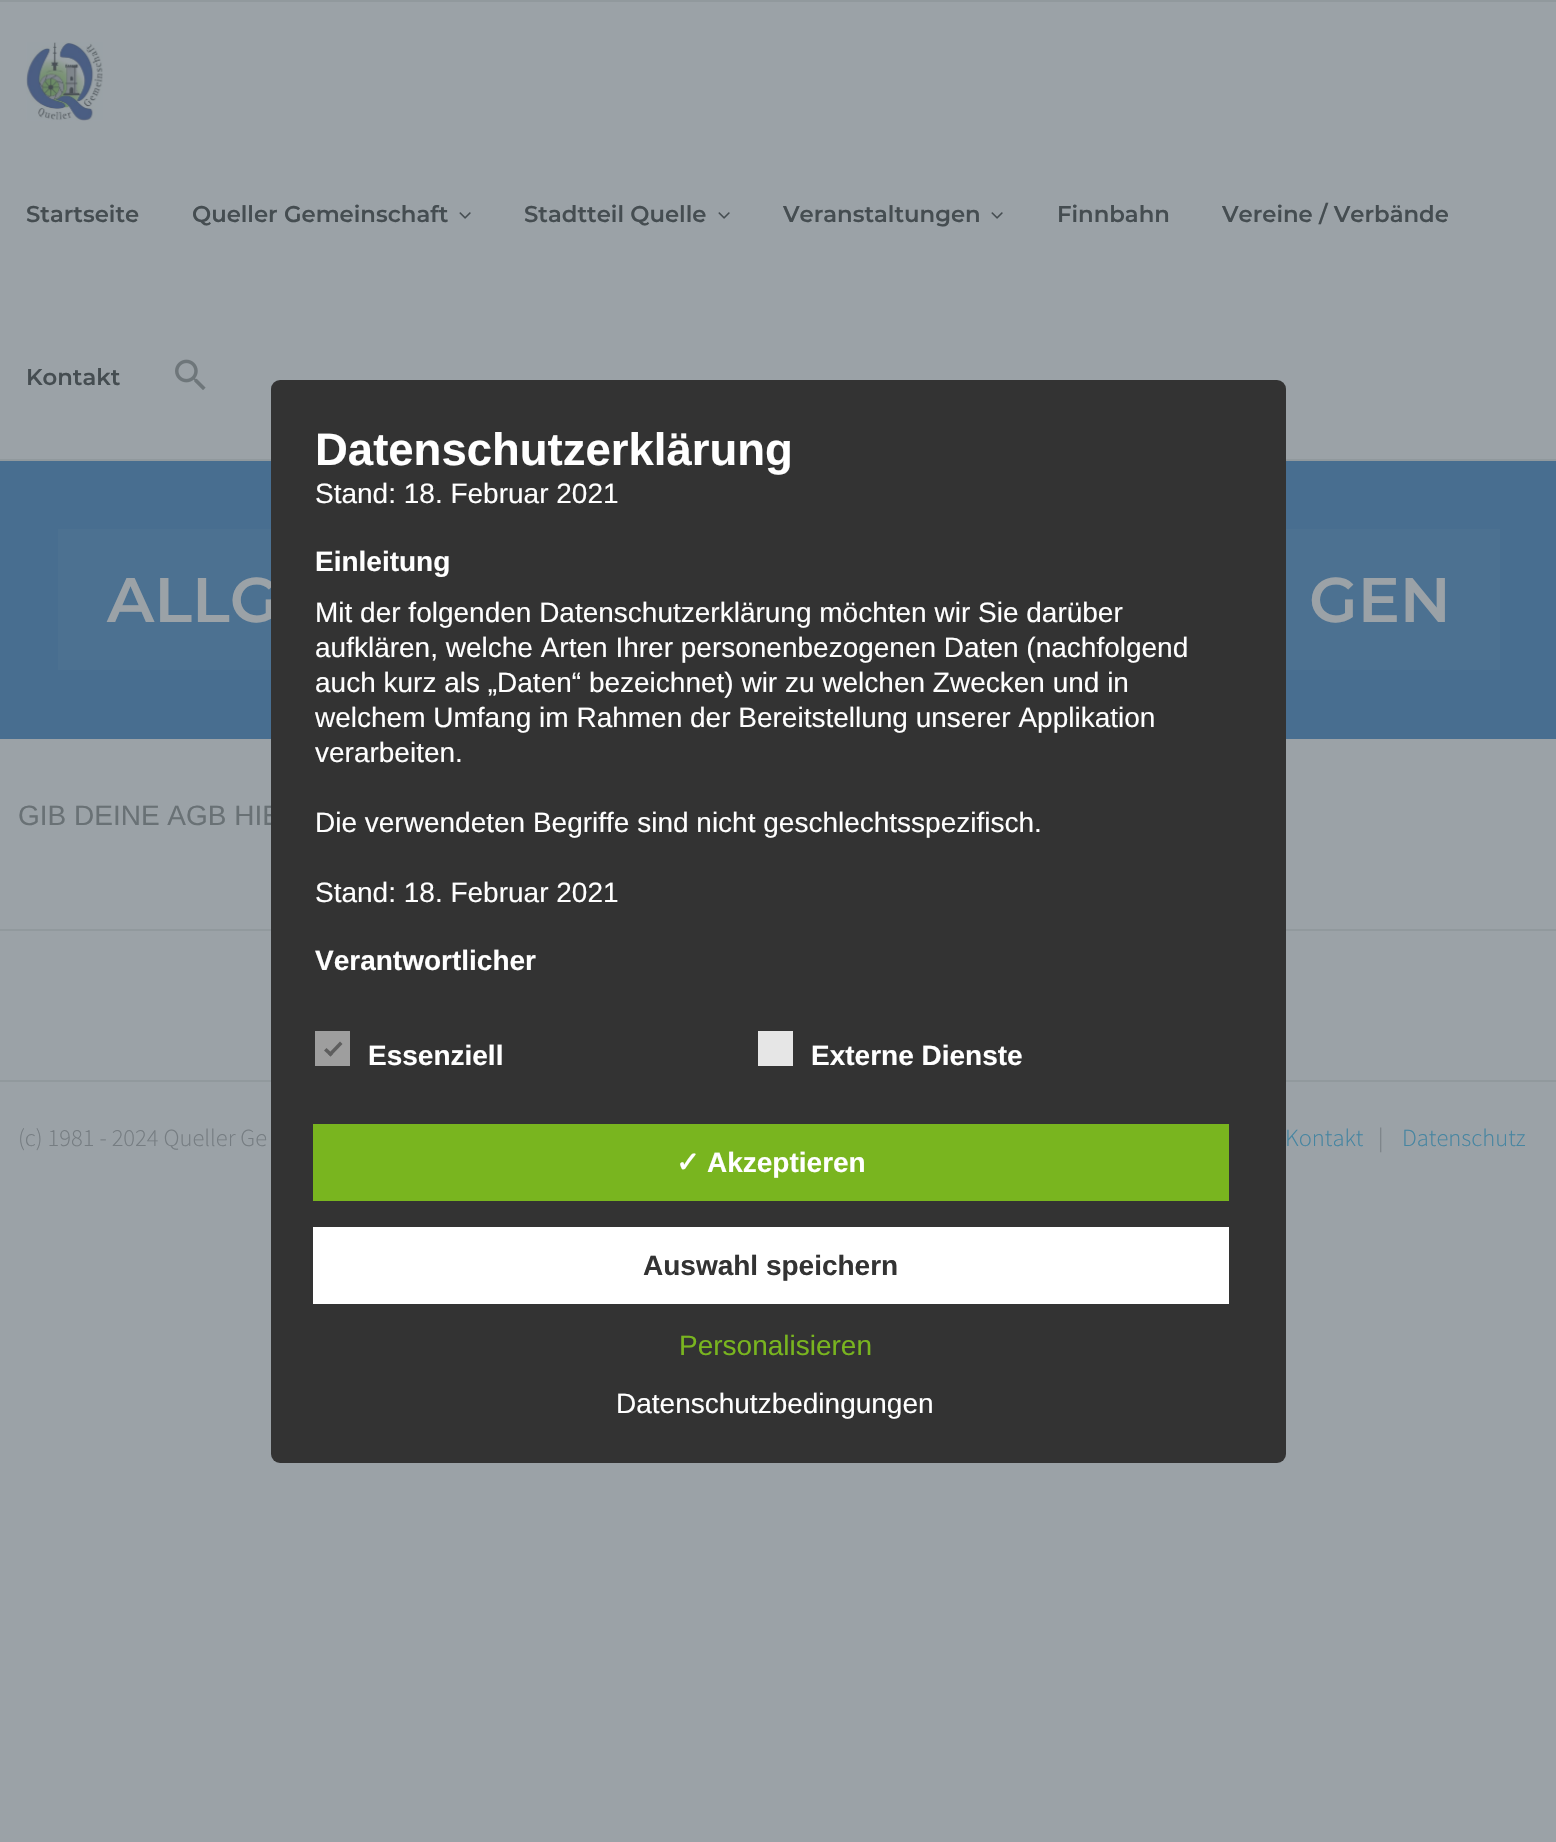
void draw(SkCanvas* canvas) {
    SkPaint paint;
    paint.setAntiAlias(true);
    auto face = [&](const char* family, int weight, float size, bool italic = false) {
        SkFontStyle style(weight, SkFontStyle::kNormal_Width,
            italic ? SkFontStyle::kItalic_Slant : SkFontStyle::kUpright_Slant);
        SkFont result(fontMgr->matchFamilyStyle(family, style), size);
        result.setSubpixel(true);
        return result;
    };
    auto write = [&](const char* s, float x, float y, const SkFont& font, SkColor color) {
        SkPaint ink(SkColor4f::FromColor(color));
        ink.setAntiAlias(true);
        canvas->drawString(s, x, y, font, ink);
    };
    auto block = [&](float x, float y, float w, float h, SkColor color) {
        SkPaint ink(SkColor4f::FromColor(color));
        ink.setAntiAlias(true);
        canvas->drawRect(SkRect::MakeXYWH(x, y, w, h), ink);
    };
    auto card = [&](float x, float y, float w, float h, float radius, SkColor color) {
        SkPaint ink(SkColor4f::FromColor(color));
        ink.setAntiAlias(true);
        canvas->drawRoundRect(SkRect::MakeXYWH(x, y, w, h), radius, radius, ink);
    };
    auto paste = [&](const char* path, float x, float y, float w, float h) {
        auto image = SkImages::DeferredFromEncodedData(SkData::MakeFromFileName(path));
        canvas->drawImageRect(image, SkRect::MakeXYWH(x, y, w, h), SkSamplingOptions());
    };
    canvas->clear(SkColorSetRGB(155, 162, 167));
    block(0, 0, 1556, 2, SkColorSetRGB(145, 153, 157));
    block(0, 459, 1556, 2, SkColorSetRGB(145, 153, 157));
    paste("pic1.png", 26, 42, 77, 79);
    auto kFont1 = face("Montserrat", 600, 22.75f);
    write("Startseite", 26, 222, kFont1, SkColorSetRGB(69, 77, 81));
    write("Queller Gemeinschaft", 192, 222, kFont1, SkColorSetRGB(69, 77, 81));
    paste("pic2.png", 459, 212, 12, 7);
    write("Stadtteil Quelle", 524, 222, kFont1, SkColorSetRGB(69, 77, 81));
    paste("pic2.png", 718, 212, 12, 7);
    write("Veranstaltungen", 783, 222, kFont1, SkColorSetRGB(69, 77, 81));
    paste("pic2.png", 991, 212, 12, 7);
    write("Finnbahn", 1057, 222, kFont1, SkColorSetRGB(69, 77, 81));
    write("Vereine / Verbände", 1222, 222, kFont1, SkColorSetRGB(69, 77, 81));
    write("Kontakt", 26, 385, kFont1, SkColorSetRGB(69, 77, 81));
    paste("pic3.png", 175, 359, 31, 31);
    block(0, 461, 1556, 278, SkColorSetRGB(72, 110, 144));
    block(58, 529, 1442, 141, SkColorSetRGB(76, 113, 145));
    auto kFont2 = face("Montserrat", 600, 63);
    write("ALLG", 107, 622, kFont2, SkColorSetRGB(155, 162, 167));
    write("GEN", 1309, 622, kFont2, SkColorSetRGB(155, 162, 167));
    auto kFont3 = face("Liberation Sans", 400, 28);
    write("GIB DEINE AGB HIE", 18, 825, kFont3, SkColorSetRGB(105, 113, 117));
    block(0, 929, 1556, 2, SkColorSetRGB(145, 153, 157));
    block(0, 1080, 1556, 2, SkColorSetRGB(145, 153, 157));
    auto kFont4 = face("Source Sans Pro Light", 300, 24.5f);
    write("(c) 1981 - 2024 Queller Ge", 18, 1146, kFont4, SkColorSetRGB(118, 125, 130));
    write("Kontakt", 1285, 1146, kFont4, SkColorSetRGB(70, 133, 161));
    write("|", 1378, 1146, kFont4, SkColorSetRGB(118, 125, 130));
    write("Datenschutz", 1402, 1146, kFont4, SkColorSetRGB(70, 133, 161));
    card(271, 380, 1015, 1083, 9, SkColorSetRGB(51, 51, 51));
    auto kFont5 = face("Liberation Sans", 700, 45.5f);
    write("Datenschutzerklärung", 315, 465, kFont5, SK_ColorWHITE);
    write("Stand: 18. Februar 2021", 315, 503, kFont3, SK_ColorWHITE);
    auto kFont6 = face("Liberation Sans", 700, 28);
    write("Einleitung", 315, 571, kFont6, SK_ColorWHITE);
    write("Mit der folgenden Datenschutzerklärung möchten wir Sie darüber", 315, 622, kFont3, SK_ColorWHITE);
    write("aufklären, welche Arten Ihrer personenbezogenen Daten (nachfolgend", 315, 657, kFont3, SK_ColorWHITE);
    write("auch kurz als „Daten“ bezeichnet) wir zu welchen Zwecken und in", 315, 692, kFont3, SK_ColorWHITE);
    write("welchem Umfang im Rahmen der Bereitstellung unserer Applikation", 315, 727, kFont3, SK_ColorWHITE);
    write("verarbeiten.", 315, 762, kFont3, SK_ColorWHITE);
    write("Die verwendeten Begriffe sind nicht geschlechtsspezifisch.", 315, 832, kFont3, SK_ColorWHITE);
    write("Stand: 18. Februar 2021", 315, 902, kFont3, SK_ColorWHITE);
    write("Verantwortlicher", 315, 970, kFont6, SK_ColorWHITE);
    block(315, 1031, 35, 35, SkColorSetRGB(158, 158, 158));
    paint.setColor(SkColorSetRGB(94, 94, 94));
    canvas->drawPath(SkPathBuilder().moveTo(340, 1041.5f).lineTo(342.5f, 1044).lineTo(330.5f, 1056.5f).lineTo(328, 1054).close().detach(), paint);
    canvas->drawPath(SkPathBuilder().moveTo(326.5f, 1048).lineTo(333, 1054).lineTo(330.5f, 1056.5f).lineTo(324, 1050.5f).close().detach(), paint);
    write("Essenziell", 368, 1065, kFont6, SK_ColorWHITE);
    block(758, 1031, 35, 35, SkColorSetRGB(230, 230, 230));
    write("Externe Dienste", 811, 1065, kFont6, SK_ColorWHITE);
    block(313, 1124, 916, 77, SkColorSetRGB(121, 181, 31));
    auto kFont7 = face("DejaVu Sans", 700, 28);
    write("✓", 676, 1172, kFont7, SK_ColorWHITE);
    write("Akzeptieren", 707, 1172, kFont6, SK_ColorWHITE);
    block(313, 1227, 916, 77, SK_ColorWHITE);
    write("Auswahl speichern", 643, 1275, kFont6, SkColorSetRGB(51, 51, 51));
    write("Personalisieren", 679, 1355, kFont3, SkColorSetRGB(121, 181, 31));
    write("Datenschutzbedingungen", 616, 1413, kFont3, SK_ColorWHITE);
}
